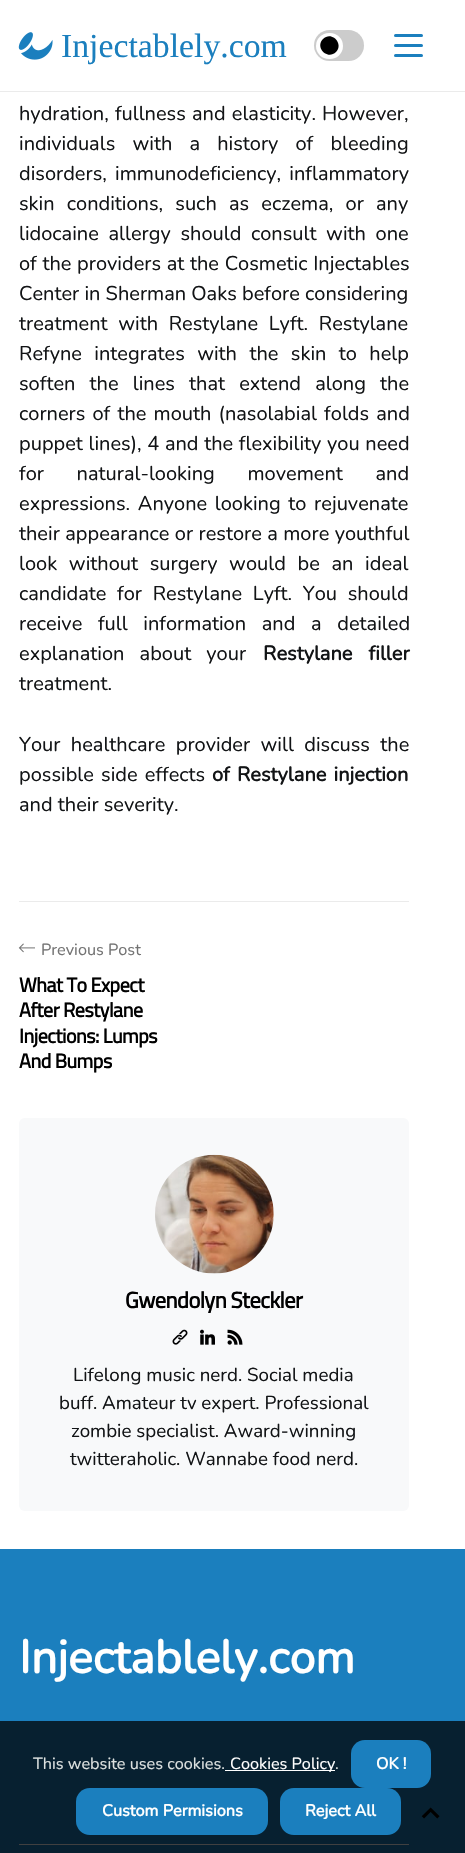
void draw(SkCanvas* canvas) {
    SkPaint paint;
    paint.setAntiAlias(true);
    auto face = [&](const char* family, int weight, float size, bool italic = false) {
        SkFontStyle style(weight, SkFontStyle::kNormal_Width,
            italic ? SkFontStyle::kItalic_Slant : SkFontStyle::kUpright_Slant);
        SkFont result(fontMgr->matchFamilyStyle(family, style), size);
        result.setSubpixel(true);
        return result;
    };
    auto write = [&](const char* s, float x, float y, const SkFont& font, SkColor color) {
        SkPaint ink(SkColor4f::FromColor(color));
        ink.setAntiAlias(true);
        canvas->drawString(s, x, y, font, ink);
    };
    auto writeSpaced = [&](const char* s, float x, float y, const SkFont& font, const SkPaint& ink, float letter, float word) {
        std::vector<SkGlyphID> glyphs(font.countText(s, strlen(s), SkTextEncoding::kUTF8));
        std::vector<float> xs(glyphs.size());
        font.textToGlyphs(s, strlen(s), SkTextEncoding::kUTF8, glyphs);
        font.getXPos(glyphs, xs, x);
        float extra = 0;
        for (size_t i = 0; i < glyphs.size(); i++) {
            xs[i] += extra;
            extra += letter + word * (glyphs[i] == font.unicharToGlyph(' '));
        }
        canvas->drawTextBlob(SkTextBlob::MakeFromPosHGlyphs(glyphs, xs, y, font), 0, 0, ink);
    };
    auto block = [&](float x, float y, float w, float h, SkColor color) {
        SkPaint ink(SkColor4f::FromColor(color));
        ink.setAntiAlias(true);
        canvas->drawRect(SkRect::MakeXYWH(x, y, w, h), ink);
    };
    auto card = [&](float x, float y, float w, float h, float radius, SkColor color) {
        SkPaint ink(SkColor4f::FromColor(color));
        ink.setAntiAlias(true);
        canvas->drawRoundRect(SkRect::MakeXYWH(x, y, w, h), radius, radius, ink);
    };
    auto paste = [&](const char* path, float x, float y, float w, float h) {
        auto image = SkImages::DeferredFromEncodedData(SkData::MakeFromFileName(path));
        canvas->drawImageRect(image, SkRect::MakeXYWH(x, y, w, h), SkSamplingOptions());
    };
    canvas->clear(SK_ColorWHITE);
    block(0, 91, 465, 1, SkColorSetRGB(235, 235, 235));
    paste("pic1.png", 18, 32, 35, 28);
    auto kFont1 = face("Liberation Serif", 400, 33.75f);
    write("Injectablely.com", 61, 57, kFont1, SkColorSetRGB(27, 127, 190));
    card(314, 30, 50, 31, 15.5f, SkColorSetRGB(204, 204, 204));
    card(316, 33, 27, 26, 13, SK_ColorWHITE);
    paint.setColor(SK_ColorBLACK);
    canvas->drawPath(SkPathBuilder().moveTo(323, 39).cubicTo(331.5f, 30.5f, 344, 43.5f, 336, 52).cubicTo(327.5f, 60.5f, 314.5f, 47.5f, 323, 39).close().detach(), paint);
    card(394, 34, 29, 3, 1.5f, SkColorSetRGB(27, 127, 190));
    card(394, 44, 29, 3, 1.5f, SkColorSetRGB(27, 127, 190));
    card(394, 54, 29, 3, 1.5f, SkColorSetRGB(27, 127, 190));
    auto kFont2 = face("Nunito", 200, 20);
    paint.setColor(SkColorSetRGB(18, 20, 22));
    writeSpaced("hydration, fullness and elasticity. However,", 19, 120, kFont2, paint, 0, 1);
    writeSpaced("individuals with a history of bleeding", 19, 150, kFont2, paint, 0, 12);
    writeSpaced("disorders, immunodeficiency, inflammatory", 19, 180, kFont2, paint, 0, 3);
    writeSpaced("skin conditions, such as eczema, or any", 19, 210, kFont2, paint, 0, 7);
    writeSpaced("lidocaine allergy should consult with one", 19, 240, kFont2, paint, 0, 4.5f);
    writeSpaced("of the providers at the Cosmetic Injectables", 19, 270, kFont2, paint, 0, 0.5f);
    write("Center in Sherman Oaks before considering", 19, 300, kFont2, SkColorSetRGB(18, 20, 22));
    writeSpaced("treatment with Restylane Lyft. Restylane", 19, 330, kFont2, paint, 0, 5.5f);
    writeSpaced("Refyne integrates with the skin to help", 19, 360, kFont2, paint, 0, 7.25f);
    writeSpaced("soften the lines that extend along the", 19, 390, kFont2, paint, 0, 9);
    writeSpaced("corners of the mouth (nasolabial folds and", 19, 420, kFont2, paint, 0, 2);
    writeSpaced("puppet lines), 4 and the flexibility you need", 19, 450, kFont2, paint, 0, 0.5f);
    writeSpaced("for natural-looking movement and", 19, 480, kFont2, paint, 0, 27.5f);
    writeSpaced("expressions. Anyone looking to rejuvenate", 19, 510, kFont2, paint, 0, 2.5f);
    writeSpaced("their appearance or restore a more youthful", 19, 540, kFont2, paint, 0, 0.25f);
    writeSpaced("look without surgery would be an ideal", 19, 570, kFont2, paint, 0, 6.5f);
    writeSpaced("candidate for Restylane Lyft. You should", 19, 600, kFont2, paint, 0, 5.5f);
    writeSpaced("receive full information and a detailed", 19, 630, kFont2, paint, 0, 10.5f);
    writeSpaced("explanation about your", 19, 660, kFont2, paint, 0, 10);
    auto kFont3 = face("Nunito", 700, 20);
    writeSpaced("Restylane filler", 263, 660, kFont3, paint, 0, 11);
    write("treatment.", 19, 690, kFont2, SkColorSetRGB(18, 20, 22));
    writeSpaced("Your healthcare provider will discuss the", 19, 751, kFont2, paint, 0, 5.25f);
    writeSpaced("possible side effects", 19, 781, kFont2, paint, 0, 2);
    writeSpaced("of Restylane injection", 212, 781, kFont3, paint, 0, 2);
    write("and their severity.", 19, 811, kFont2, SkColorSetRGB(18, 20, 22));
    block(19, 901, 390, 1, SkColorSetRGB(235, 235, 235));
    paste("pic2.png", 18, 943, 17, 10);
    auto kFont4 = face("Nunito", 200, 16.25f);
    write("Previous Post", 41, 955, kFont4, SkColorSetRGB(115, 115, 115));
    auto kFont5 = face("Cairo", 700, 20);
    paint.setColor(SK_ColorBLACK);
    writeSpaced("What To Expect", 19, 992, kFont5, paint, -0.5f, 0);
    writeSpaced("After Restylane", 19, 1017, kFont5, paint, -0.5f, 0);
    writeSpaced("Injections: Lumps", 19, 1043, kFont5, paint, -0.5f, 0);
    writeSpaced("And Bumps", 19, 1068, kFont5, paint, -0.5f, 0);
    card(19, 1118, 390, 393, 6, SkColorSetRGB(248, 249, 250));
    paste("pic3.png", 155, 1154, 119, 120);
    auto kFont6 = face("Cairo", 700, 22.5f);
    writeSpaced("Gwendolyn Steckler", 125, 1308, kFont6, paint, -0.6f, 0);
    paste("pic4.png", 172, 1329, 16, 16);
    paste("pic5.png", 200, 1329, 15, 16);
    paste("pic6.png", 227, 1329, 16, 16);
    auto kFont7 = face("Nunito", 200, 18.75f);
    write("Lifelong music nerd. Social media", 73, 1381, kFont7, SkColorSetRGB(18, 20, 22));
    write("buff. Amateur tv expert. Professional", 59, 1409, kFont7, SkColorSetRGB(18, 20, 22));
    write("zombie specialist. Award-winning", 71, 1437, kFont7, SkColorSetRGB(18, 20, 22));
    write("twitteraholic. Wannabe food nerd.", 70, 1465, kFont7, SkColorSetRGB(18, 20, 22));
    block(0, 1549, 465, 172, SkColorSetRGB(27, 127, 190));
    block(0, 1721, 465, 132, SkColorSetRGB(7, 32, 48));
    auto kFont8 = face("Nunito", 700, 46.25f);
    write("Injectablely.com", 19, 1673, kFont8, SK_ColorWHITE);
    block(19, 1844, 390, 1, SkColorSetRGB(64, 64, 64));
    paste("pic7.png", 421, 1807, 19, 12);
    write("This website uses cookies.", 33, 1769, kFont4, SkColorSetRGB(219, 224, 223));
    block(225, 1770, 110, 1, SK_ColorWHITE);
    write("Cookies Policy", 230, 1769, kFont4, SK_ColorWHITE);
    write(".", 335, 1769, kFont4, SkColorSetRGB(219, 224, 223));
    card(351, 1740, 80, 48, 14, SkColorSetRGB(27, 127, 190));
    auto kFont9 = face("Nunito", 700, 16.25f);
    write("OK !", 376, 1769, kFont9, SK_ColorWHITE);
    card(76, 1788, 192, 47, 14, SkColorSetRGB(27, 127, 190));
    write("Custom Permisions", 102, 1816, kFont9, SK_ColorWHITE);
    card(280, 1788, 121, 47, 14, SkColorSetRGB(27, 127, 190));
    write("Reject All", 305, 1816, kFont9, SK_ColorWHITE);
}
